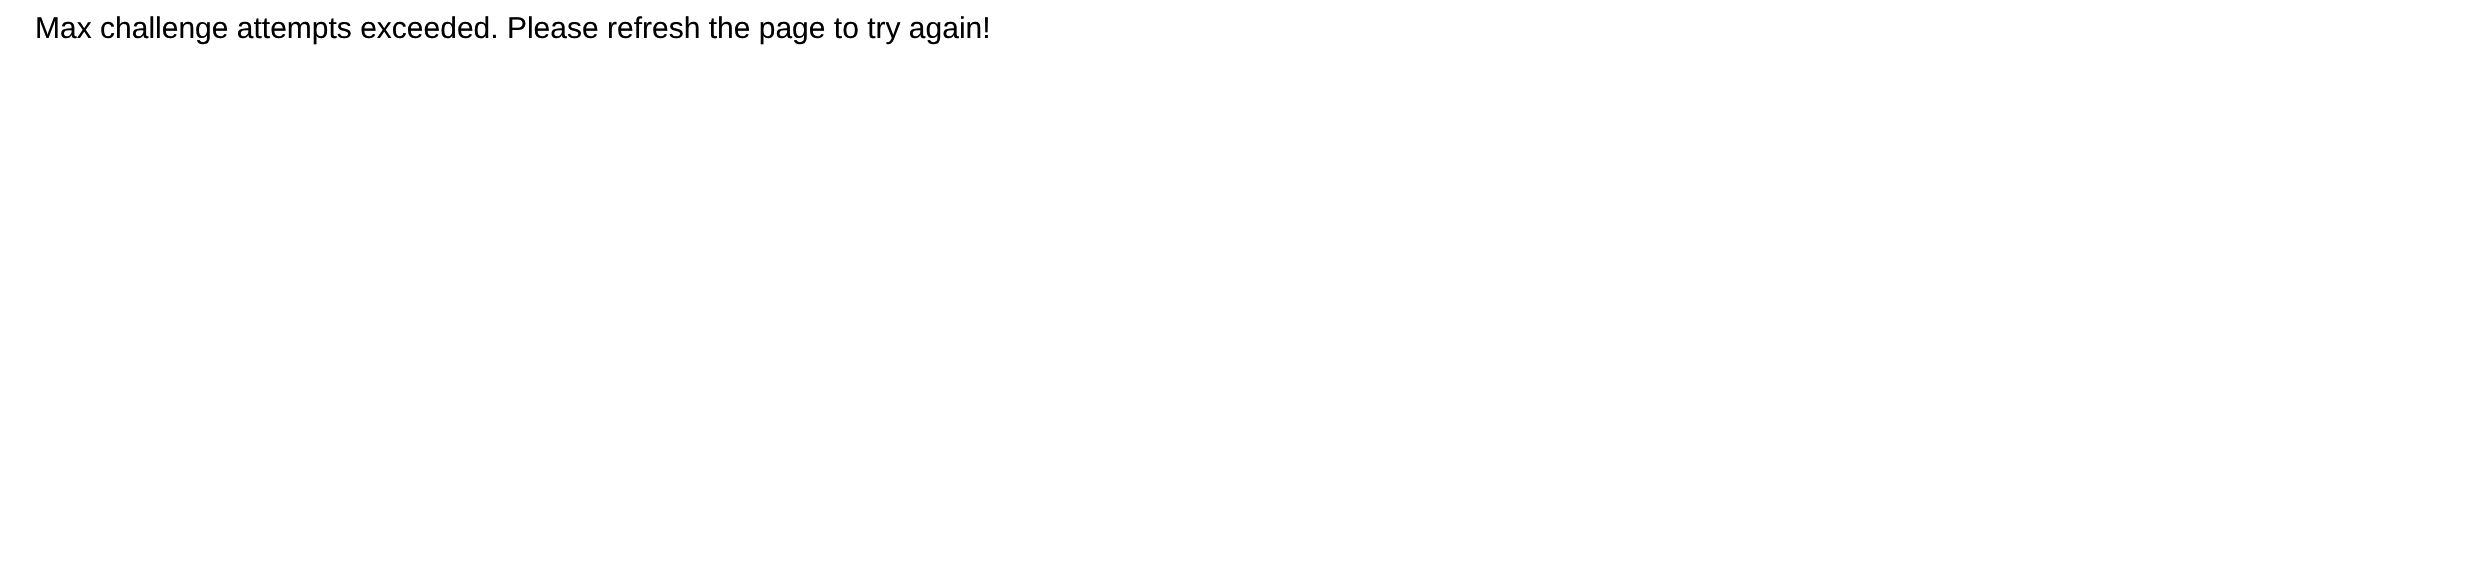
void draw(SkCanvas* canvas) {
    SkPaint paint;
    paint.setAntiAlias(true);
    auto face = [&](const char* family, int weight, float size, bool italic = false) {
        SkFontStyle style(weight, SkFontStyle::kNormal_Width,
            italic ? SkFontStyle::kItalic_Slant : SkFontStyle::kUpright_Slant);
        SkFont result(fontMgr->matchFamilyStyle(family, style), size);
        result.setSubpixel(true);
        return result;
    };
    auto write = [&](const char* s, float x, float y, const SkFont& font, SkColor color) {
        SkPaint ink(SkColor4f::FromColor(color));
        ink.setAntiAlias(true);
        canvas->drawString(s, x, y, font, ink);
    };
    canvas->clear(SK_ColorWHITE);
    auto kFont1 = face("Liberation Sans", 400, 30);
    write("Max challenge attempts exceeded. Please refresh the page to try again!", 35, 38, kFont1, SK_ColorBLACK);
}
